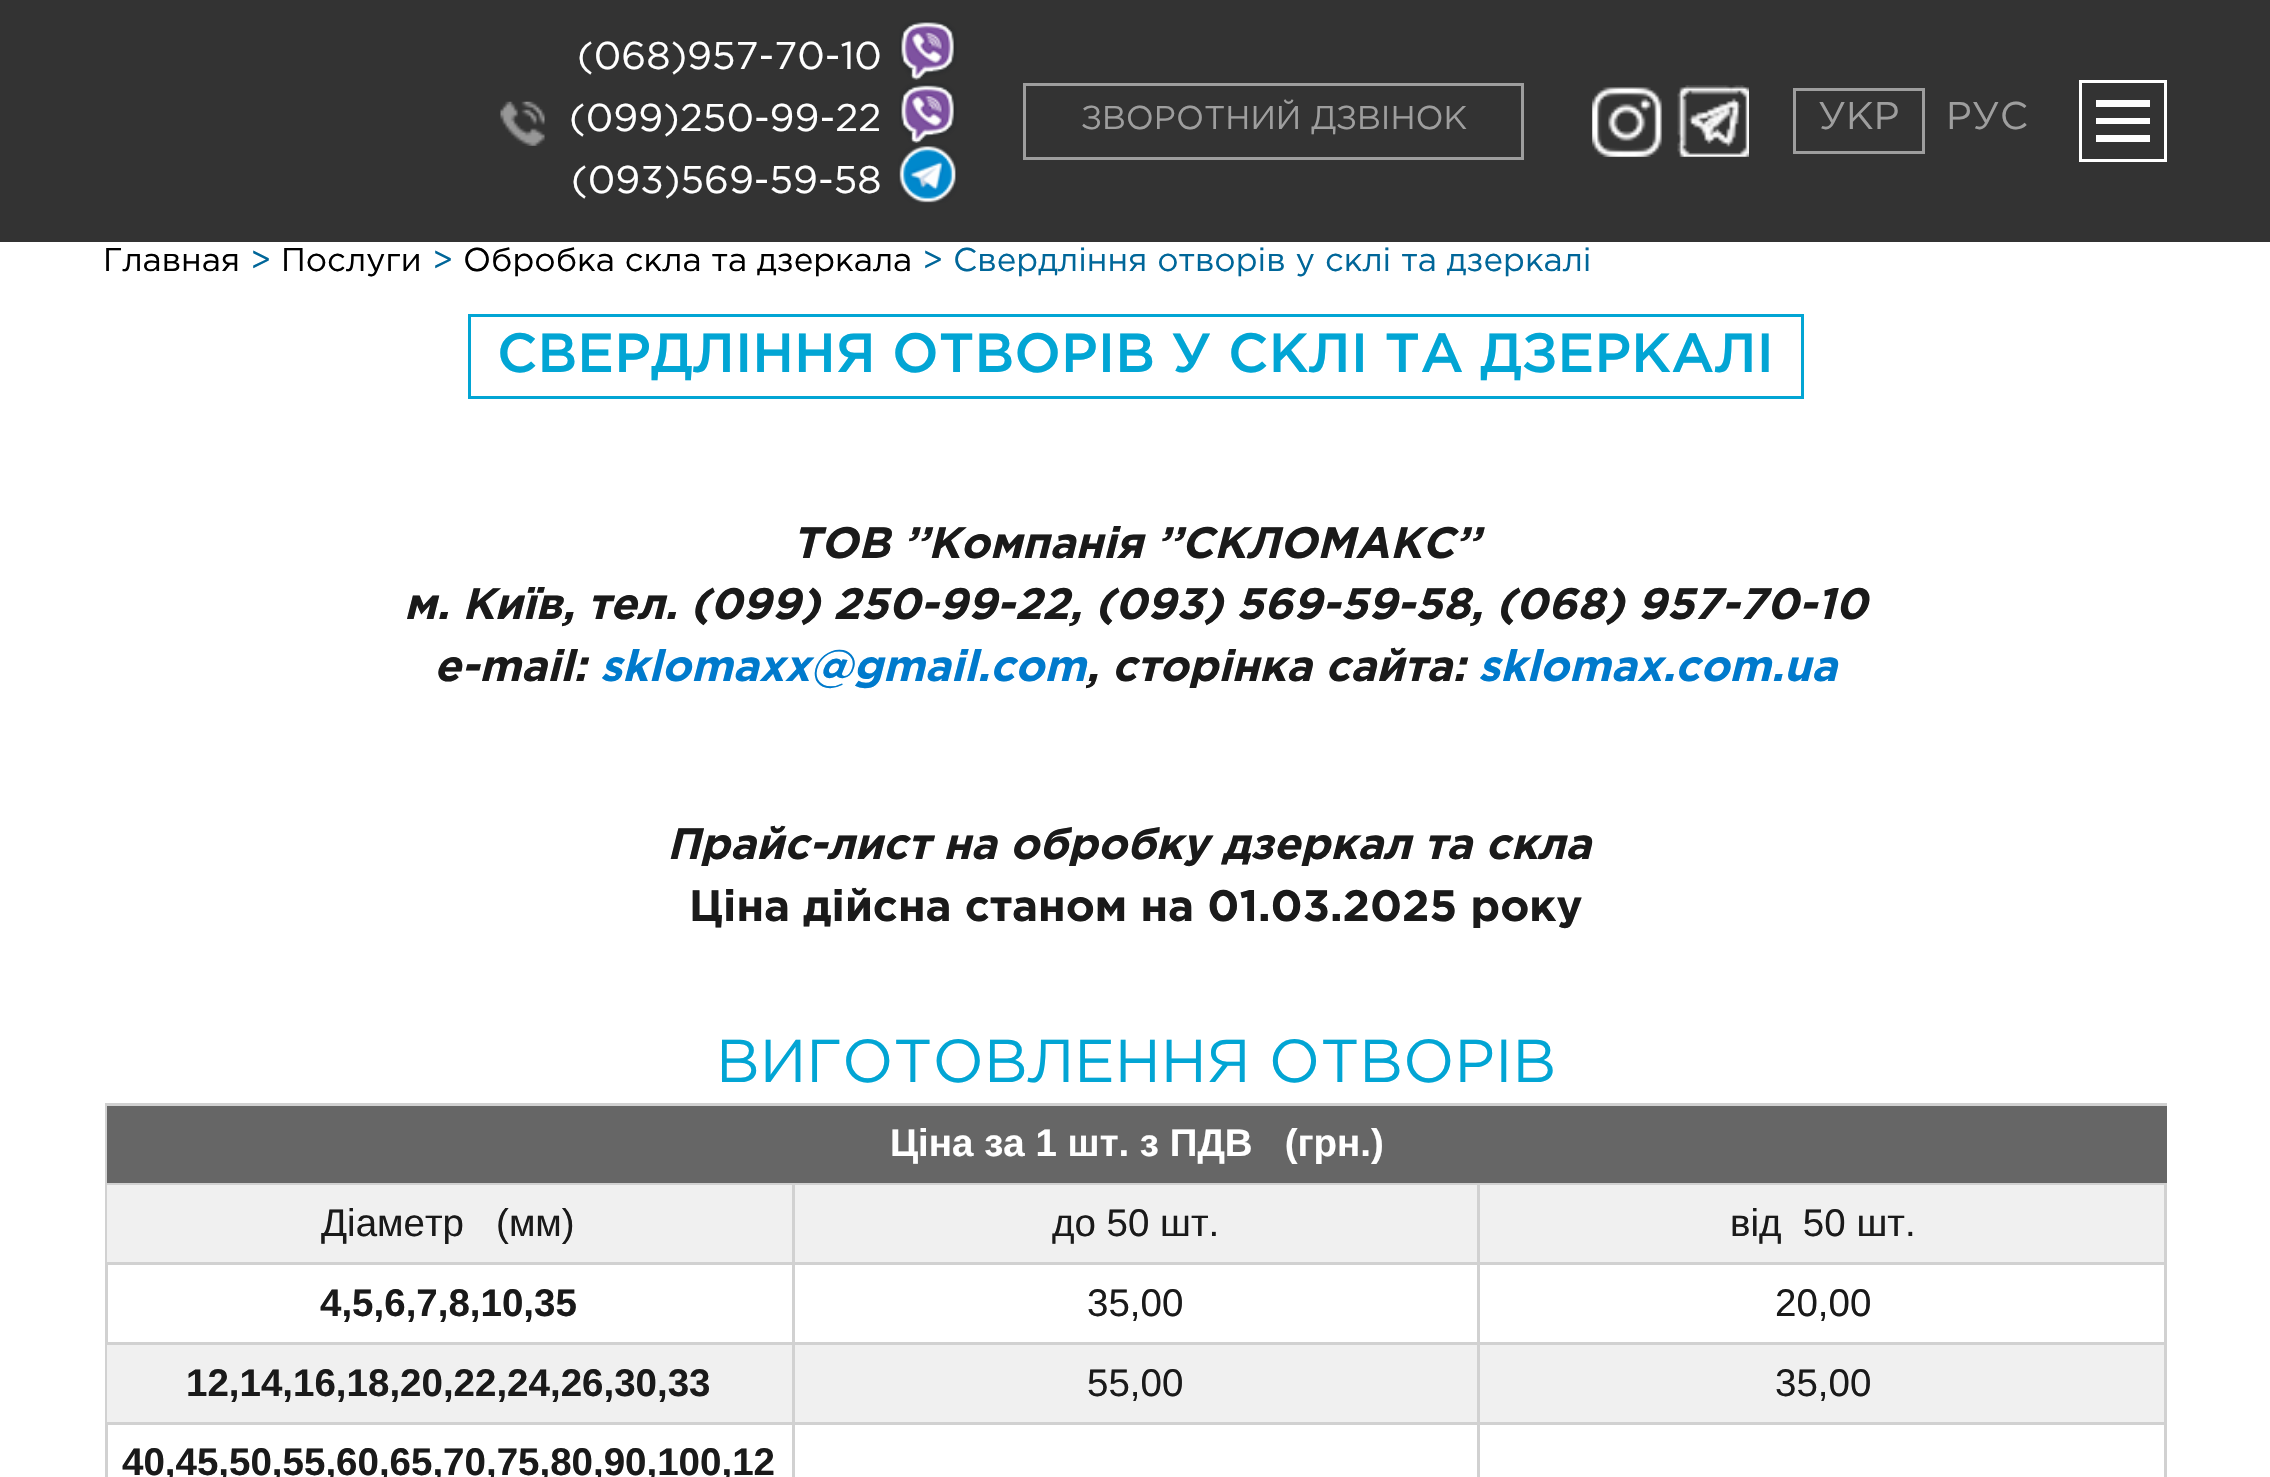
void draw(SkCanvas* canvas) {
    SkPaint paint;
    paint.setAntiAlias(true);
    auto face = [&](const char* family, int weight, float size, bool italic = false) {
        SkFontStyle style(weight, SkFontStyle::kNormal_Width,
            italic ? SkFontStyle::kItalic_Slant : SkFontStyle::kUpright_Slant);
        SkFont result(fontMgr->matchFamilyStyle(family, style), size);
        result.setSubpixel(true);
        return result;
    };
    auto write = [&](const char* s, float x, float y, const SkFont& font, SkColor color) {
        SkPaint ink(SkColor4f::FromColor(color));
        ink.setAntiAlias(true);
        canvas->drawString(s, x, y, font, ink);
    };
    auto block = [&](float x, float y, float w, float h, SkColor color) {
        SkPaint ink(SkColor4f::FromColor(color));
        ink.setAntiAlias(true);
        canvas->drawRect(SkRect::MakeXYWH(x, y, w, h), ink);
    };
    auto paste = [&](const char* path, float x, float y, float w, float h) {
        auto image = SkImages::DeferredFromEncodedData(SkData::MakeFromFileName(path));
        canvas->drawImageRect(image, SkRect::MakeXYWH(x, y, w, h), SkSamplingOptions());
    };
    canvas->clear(SK_ColorWHITE);
    block(0, 0, 2270, 242, SkColorSetRGB(51, 51, 51));
    auto kFont1 = face("Gotham", 400, 38.5f);
    write("(068)957-70-10", 577, 69, kFont1, SK_ColorWHITE);
    paste("pic1.png", 899, 20, 58, 60);
    paste("pic2.png", 500, 101, 45, 45);
    write("(099)250-99-22", 569, 131, kFont1, SK_ColorWHITE);
    paste("pic3.png", 899, 83, 58, 60);
    write("(093)569-59-58", 571, 193, kFont1, SK_ColorWHITE);
    paste("pic4.png", 898, 145, 59, 58);
    paint.setStyle(SkPaint::kStroke_Style);
    paint.setStrokeWidth(3);
    paint.setColor(SkColorSetRGB(158, 158, 158));
    canvas->drawRect(SkRect::MakeXYWH(1024.5f, 84.5f, 498, 74), paint);
    auto kFont2 = face("Gotham", 400, 33);
    write("ЗВОРОТНИЙ ДЗВІНОК", 1081, 129, kFont2, SkColorSetRGB(158, 158, 158));
    paste("pic5.png", 1592, 87, 70, 70);
    paste("pic6.png", 1677, 85, 72, 72);
    canvas->drawRect(SkRect::MakeXYWH(1794.5f, 89.5f, 129, 63), paint);
    write("УКР", 1818, 129, kFont1, SkColorSetRGB(158, 158, 158));
    write("РУС", 1946, 129, kFont1, SkColorSetRGB(158, 158, 158));
    paint.setColor(SK_ColorWHITE);
    canvas->drawRect(SkRect::MakeXYWH(2080.5f, 81.5f, 85, 79), paint);
    paint.setStyle(SkPaint::kFill_Style);
    canvas->drawPath(SkPathBuilder().moveTo(2096, 142).lineTo(2096, 135).lineTo(2150, 135).lineTo(2150, 142).close().moveTo(2096, 100).lineTo(2150, 100).lineTo(2150, 107).lineTo(2096, 107).close().moveTo(2096, 124).lineTo(2096, 118).lineTo(2150, 118).lineTo(2150, 124).close().detach(), paint);
    write("Главная", 103, 271, kFont2, SK_ColorBLACK);
    write(">", 250, 271, kFont2, SkColorSetRGB(0, 102, 153));
    write("Послуги", 281, 271, kFont2, SK_ColorBLACK);
    write(">", 432, 271, kFont2, SkColorSetRGB(0, 102, 153));
    write("Обробка скла та дзеркала", 463, 271, kFont2, SK_ColorBLACK);
    write("> Свердління отворів у склі та дзеркалі", 922, 271, kFont2, SkColorSetRGB(0, 102, 153));
    paint.setStyle(SkPaint::kStroke_Style);
    paint.setColor(SkColorSetRGB(2, 165, 212));
    canvas->drawRect(SkRect::MakeXYWH(469.5f, 315.5f, 1333, 82), paint);
    auto kFont3 = face("Gotham", 500, 55);
    write("СВЕРДЛІННЯ ОТВОРІВ У СКЛІ ТА ДЗЕРКАЛІ", 497, 372, kFont3, SkColorSetRGB(2, 165, 212));
    auto kFont4 = face("Gotham", 700, 44, true);
    write("ТОВ ’’Компанія ’’СКЛОМАКС’’", 792, 558, kFont4, SkColorSetRGB(26, 26, 26));
    write("м. Київ, тел. (099) 250-99-22, (093) 569-59-58, (068) 957-70-10", 404, 619, kFont4, SkColorSetRGB(26, 26, 26));
    write("e-mail:", 434, 681, kFont4, SkColorSetRGB(26, 26, 26));
    write("sklomaxx@gmail.com", 600, 681, kFont4, SkColorSetRGB(0, 122, 204));
    write(", сторінка сайта:", 1086, 681, kFont4, SkColorSetRGB(26, 26, 26));
    write("sklomax.com.ua", 1478, 681, kFont4, SkColorSetRGB(0, 122, 204));
    write("Прайс-лист на обробку дзеркал та скла", 667, 859, kFont4, SkColorSetRGB(26, 26, 26));
    auto kFont5 = face("Gotham", 700, 44);
    write("Ціна дійсна станом на 01.03.2025 року", 689, 921, kFont5, SkColorSetRGB(26, 26, 26));
    auto kFont6 = face("Gotham", 400, 60.5f);
    write("ВИГОТОВЛЕННЯ ОТВОРІВ", 716, 1082, kFont6, SkColorSetRGB(2, 165, 212));
    block(105, 1103, 2062, 3, SkColorSetRGB(209, 209, 209));
    block(105, 1103, 3, 374, SkColorSetRGB(209, 209, 209));
    block(107, 1106, 2060, 77, SkColorSetRGB(102, 102, 102));
    block(107, 1183, 2060, 2, SkColorSetRGB(209, 209, 209));
    auto kFont7 = face("Liberation Sans", 700, 38.5f);
    write("Ціна за 1 шт. з ПДВ   (грн.)", 890, 1156, kFont7, SK_ColorWHITE);
    block(107, 1185, 2057, 77, SkColorSetRGB(240, 240, 240));
    block(792, 1185, 3, 160, SkColorSetRGB(209, 209, 209));
    block(107, 1262, 688, 3, SkColorSetRGB(209, 209, 209));
    auto kFont8 = face("Liberation Sans", 400, 38.5f);
    write("Діаметр   (мм)", 321, 1236, kFont8, SkColorSetRGB(26, 26, 26));
    block(1477, 1185, 3, 160, SkColorSetRGB(209, 209, 209));
    block(795, 1262, 685, 3, SkColorSetRGB(209, 209, 209));
    write("до 50 шт.", 1052, 1236, kFont8, SkColorSetRGB(26, 26, 26));
    block(2164, 1185, 3, 292, SkColorSetRGB(209, 209, 209));
    block(1480, 1262, 687, 3, SkColorSetRGB(209, 209, 209));
    write("від  50 шт.", 1730, 1236, kFont8, SkColorSetRGB(26, 26, 26));
    block(107, 1342, 2060, 3, SkColorSetRGB(209, 209, 209));
    write("4,5,6,7,8,10,35", 320, 1316, kFont7, SkColorSetRGB(26, 26, 26));
    write("35,00", 1087, 1316, kFont8, SkColorSetRGB(26, 26, 26));
    write("20,00", 1775, 1316, kFont8, SkColorSetRGB(26, 26, 26));
    block(107, 1345, 2057, 77, SkColorSetRGB(240, 240, 240));
    block(792, 1345, 3, 132, SkColorSetRGB(209, 209, 209));
    block(107, 1422, 688, 3, SkColorSetRGB(209, 209, 209));
    write("12,14,16,18,20,22,24,26,30,33", 186, 1396, kFont7, SkColorSetRGB(26, 26, 26));
    block(1477, 1345, 3, 132, SkColorSetRGB(209, 209, 209));
    block(795, 1422, 1372, 3, SkColorSetRGB(209, 209, 209));
    write("55,00", 1087, 1396, kFont8, SkColorSetRGB(26, 26, 26));
    write("35,00", 1775, 1396, kFont8, SkColorSetRGB(26, 26, 26));
    write("40,45,50,55,60,65,70,75,80,90,100,12", 122, 1475, kFont7, SkColorSetRGB(26, 26, 26));
}
